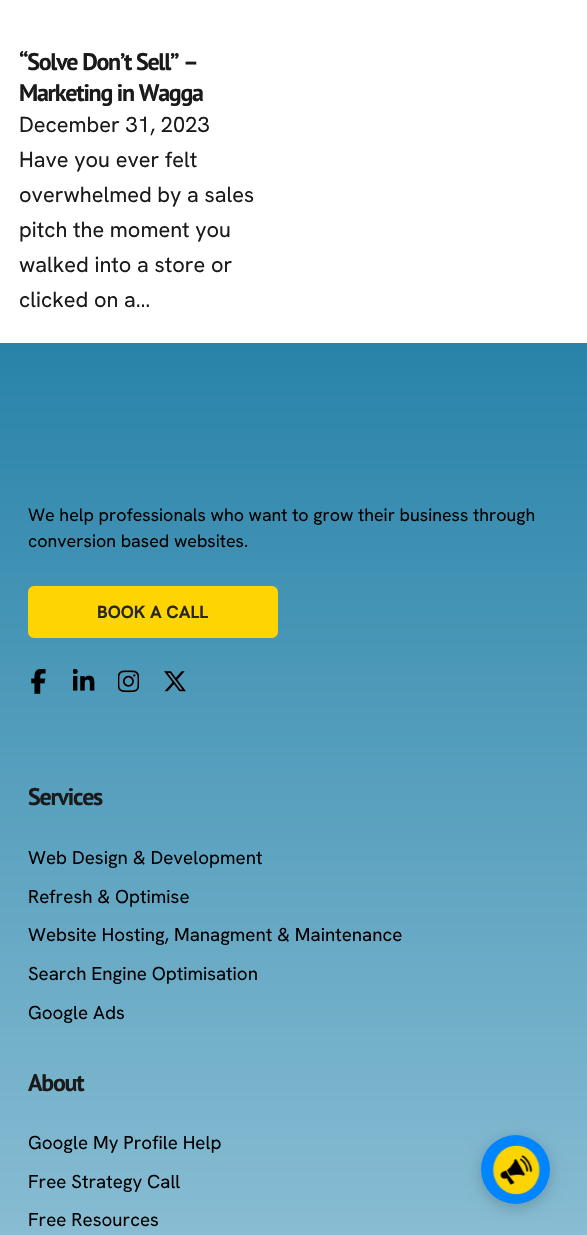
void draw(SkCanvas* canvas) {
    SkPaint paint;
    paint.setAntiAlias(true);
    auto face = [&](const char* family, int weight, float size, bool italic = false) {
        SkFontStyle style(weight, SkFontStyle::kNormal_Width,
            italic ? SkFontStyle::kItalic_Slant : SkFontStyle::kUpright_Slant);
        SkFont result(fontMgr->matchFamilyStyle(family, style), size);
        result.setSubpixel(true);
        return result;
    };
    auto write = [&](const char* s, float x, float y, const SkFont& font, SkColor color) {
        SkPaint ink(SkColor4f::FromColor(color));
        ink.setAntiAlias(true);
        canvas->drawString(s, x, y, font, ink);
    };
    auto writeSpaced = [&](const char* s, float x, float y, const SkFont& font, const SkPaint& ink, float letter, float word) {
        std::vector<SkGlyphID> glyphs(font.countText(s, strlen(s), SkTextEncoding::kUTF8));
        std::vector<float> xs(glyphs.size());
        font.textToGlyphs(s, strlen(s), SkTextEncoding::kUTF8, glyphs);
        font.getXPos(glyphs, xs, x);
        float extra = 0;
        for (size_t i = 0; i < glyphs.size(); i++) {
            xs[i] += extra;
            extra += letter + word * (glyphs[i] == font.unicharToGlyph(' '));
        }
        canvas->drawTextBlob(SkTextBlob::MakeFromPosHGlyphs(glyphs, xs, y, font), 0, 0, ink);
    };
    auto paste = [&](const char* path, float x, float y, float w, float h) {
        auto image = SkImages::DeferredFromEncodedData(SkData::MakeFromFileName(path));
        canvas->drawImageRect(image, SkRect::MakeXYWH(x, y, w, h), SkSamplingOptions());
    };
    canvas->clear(SK_ColorWHITE);
    auto kFont1 = face("PT Sans", 700, 24);
    paint.setColor(SkColorSetRGB(26, 26, 26));
    writeSpaced("“Solve Don’t Sell” –", 19, 70, kFont1, paint, -1.25f, 0);
    writeSpaced("Marketing in Wagga", 19, 101, kFont1, paint, -1.25f, 0);
    auto kFont2 = face("Hanken Grotesk", 400, 21.75f);
    write("December 31, 2023", 19, 132, kFont2, SkColorSetRGB(26, 26, 26));
    write("Have you ever felt", 19, 167, kFont2, SkColorSetRGB(26, 26, 26));
    write("overwhelmed by a sales", 19, 202, kFont2, SkColorSetRGB(26, 26, 26));
    write("pitch the moment you", 19, 237, kFont2, SkColorSetRGB(26, 26, 26));
    write("walked into a store or", 19, 272, kFont2, SkColorSetRGB(26, 26, 26));
    write("clicked on a…", 19, 307, kFont2, SkColorSetRGB(26, 26, 26));
    {
        const SkColor colors[] = {SkColorSetRGB(40, 131, 169), SkColorSetRGB(203, 229, 240)};
        const float stops[] = {0, 1};
        const SkPoint ends[] = {{294, 343}, {294, 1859}};
        paint.setShader(SkGradientShader::MakeLinear(ends, colors, stops, 2, SkTileMode::kClamp));
        paint.setAlpha(255);
    }
    canvas->drawRect(SkRect::MakeXYWH(0, 343, 587, 892), paint);
    auto kFont3 = face("Hanken Grotesk", 400, 17.85f);
    write("We help professionals who want to grow their business through", 28, 521, kFont3, SK_ColorBLACK);
    write("conversion based websites.", 28, 547, kFont3, SK_ColorBLACK);
    paint.setShader(nullptr);
    paint.setColor(SkColorSetRGB(254, 212, 1));
    canvas->drawRoundRect(SkRect::MakeXYWH(30, 588, 246, 48), 4, 4, paint);
    paint.setStyle(SkPaint::kStroke_Style);
    paint.setStrokeWidth(4);
    canvas->drawRoundRect(SkRect::MakeXYWH(30, 588, 246, 48), 4, 4, paint);
    auto kFont4 = face("Hanken Grotesk", 700, 17.5f);
    write("BOOK A CALL", 97, 618, kFont4, SkColorSetRGB(38, 38, 38));
    paste("pic1.png", 31, 669, 15, 25);
    paste("pic2.png", 73, 669, 22, 22);
    paste("pic3.png", 118, 670, 21, 23);
    paste("pic4.png", 163, 671, 24, 21);
    paint.setStyle(SkPaint::kFill_Style);
    paint.setColor(SkColorSetRGB(26, 26, 26));
    writeSpaced("Services", 28, 805, kFont1, paint, -1.25f, 0);
    auto kFont5 = face("Hanken Grotesk", 400, 18.75f);
    write("Web Design & Development", 28, 864, kFont5, SK_ColorBLACK);
    write("Refresh & Optimise", 28, 903, kFont5, SK_ColorBLACK);
    write("Website Hosting, Managment & Maintenance", 28, 941, kFont5, SK_ColorBLACK);
    write("Search Engine Optimisation", 28, 980, kFont5, SK_ColorBLACK);
    write("Google Ads", 28, 1019, kFont5, SK_ColorBLACK);
    writeSpaced("About", 28, 1091, kFont1, paint, -1.25f, 0);
    write("Google My Profile Help", 28, 1149, kFont5, SK_ColorBLACK);
    write("Free Strategy Call", 28, 1188, kFont5, SK_ColorBLACK);
    write("Free Resources", 28, 1226, kFont5, SK_ColorBLACK);
    paint.setColor(SkColorSetARGB(51, 0, 0, 0));
    paint.setMaskFilter(SkMaskFilter::MakeBlur(kNormal_SkBlurStyle, 7.5f));
    canvas->drawRoundRect(SkRect::MakeXYWH(481, 1139, 69, 69), 34.5f, 34.5f, paint);
    paint.setMaskFilter(nullptr);
    paint.setColor(SkColorSetRGB(0, 132, 255));
    canvas->drawCircle(515.5f, 1169.5f, 34.5f, paint);
    paste("pic5.png", 492, 1145, 49, 50);
}
